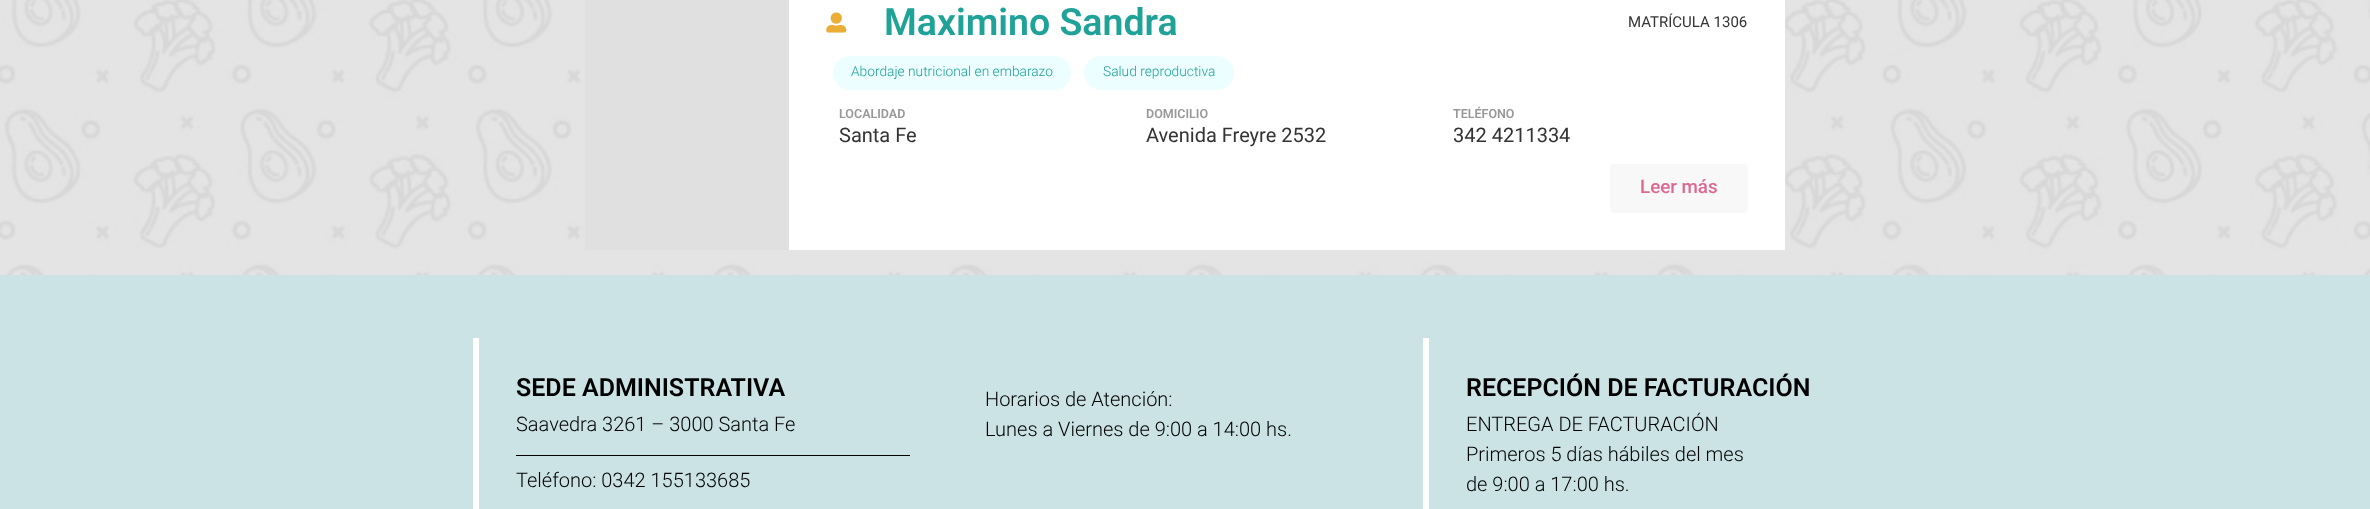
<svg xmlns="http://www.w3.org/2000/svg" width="2370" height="509">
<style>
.a{font:600 37.5px Roboto;fill:#1fa297}
.b{font:15px Roboto;fill:#333}
.c{font:300 13.75px Roboto;fill:#1fa297}
.d{font:600 12.5px Roboto;fill:#989899}
.e{font:20px Roboto;fill:#333}
.f{font:500 18.75px Roboto;fill:#dd6790}
.g{font:600 25px Roboto;fill:#000}
.h{font:300 20px Roboto;fill:#000}
</style>
<rect width="100%" height="100%" fill="#fff"/>
<image href="1.png" x="0" y="0" width="2370" height="275"/>
<path fill="#e1e0e0" d="M585 0h204v250H585z"/>
<path fill="#fff" d="M789 0h996v250H789z"/>
<image href="2.png" x="826" y="12" width="21" height="21"/>
<rect fill="#ecfeff" x="833" y="56" width="238" height="34" rx="17"/>
<rect fill="#ecfeff" x="1084" y="56" width="150" height="34" rx="17"/>
<rect fill="#f8f8f8" x="1610" y="164" width="138" height="49" rx="4"/>
<path fill="#cbe3e4" d="M0 275h2370v234H0z"/>
<path fill="#fff" d="M473 338h6v171H473z"/>
<path fill="#030303" d="M516 455h394v1H516z"/>
<path fill="#fff" d="M1423 338h6v171H1423z"/>
<text class="a" x="884" y="35">Maximino Sandra</text>
<text class="b" x="1628" y="27">MATRÍCULA 1306</text>
<text class="c" x="851" y="76">Abordaje nutricional en embarazo</text>
<text class="c" x="1103" y="76">Salud reproductiva</text>
<text class="d" x="839" y="118">LOCALIDAD</text>
<text class="e" x="839" y="142">Santa Fe</text>
<text class="d" x="1146" y="118">DOMICILIO</text>
<text class="e" x="1146" y="142">Avenida Freyre 2532</text>
<text class="d" x="1453" y="118">TELÉFONO</text>
<text class="e" x="1453" y="142">342 4211334</text>
<text class="f" x="1640" y="193">Leer más</text>
<text class="g" x="516" y="396">SEDE ADMINISTRATIVA</text>
<text class="h" x="516" y="431">Saavedra 3261 – 3000 Santa Fe</text>
<text class="h" x="516" y="487">Teléfono: 0342 155133685</text>
<text class="h" x="985" y="406">Horarios de Atención:</text>
<text class="h" x="985" y="436">Lunes a Viernes de 9:00 a 14:00 hs.</text>
<text class="g" x="1466" y="396">RECEPCIÓN DE FACTURACIÓN</text>
<text class="h" x="1466" y="431">ENTREGA DE FACTURACIÓN</text>
<text class="h" x="1466" y="461">Primeros 5 días hábiles del mes</text>
<text class="h" x="1466" y="491">de 9:00 a 17:00 hs.</text>
</svg>
